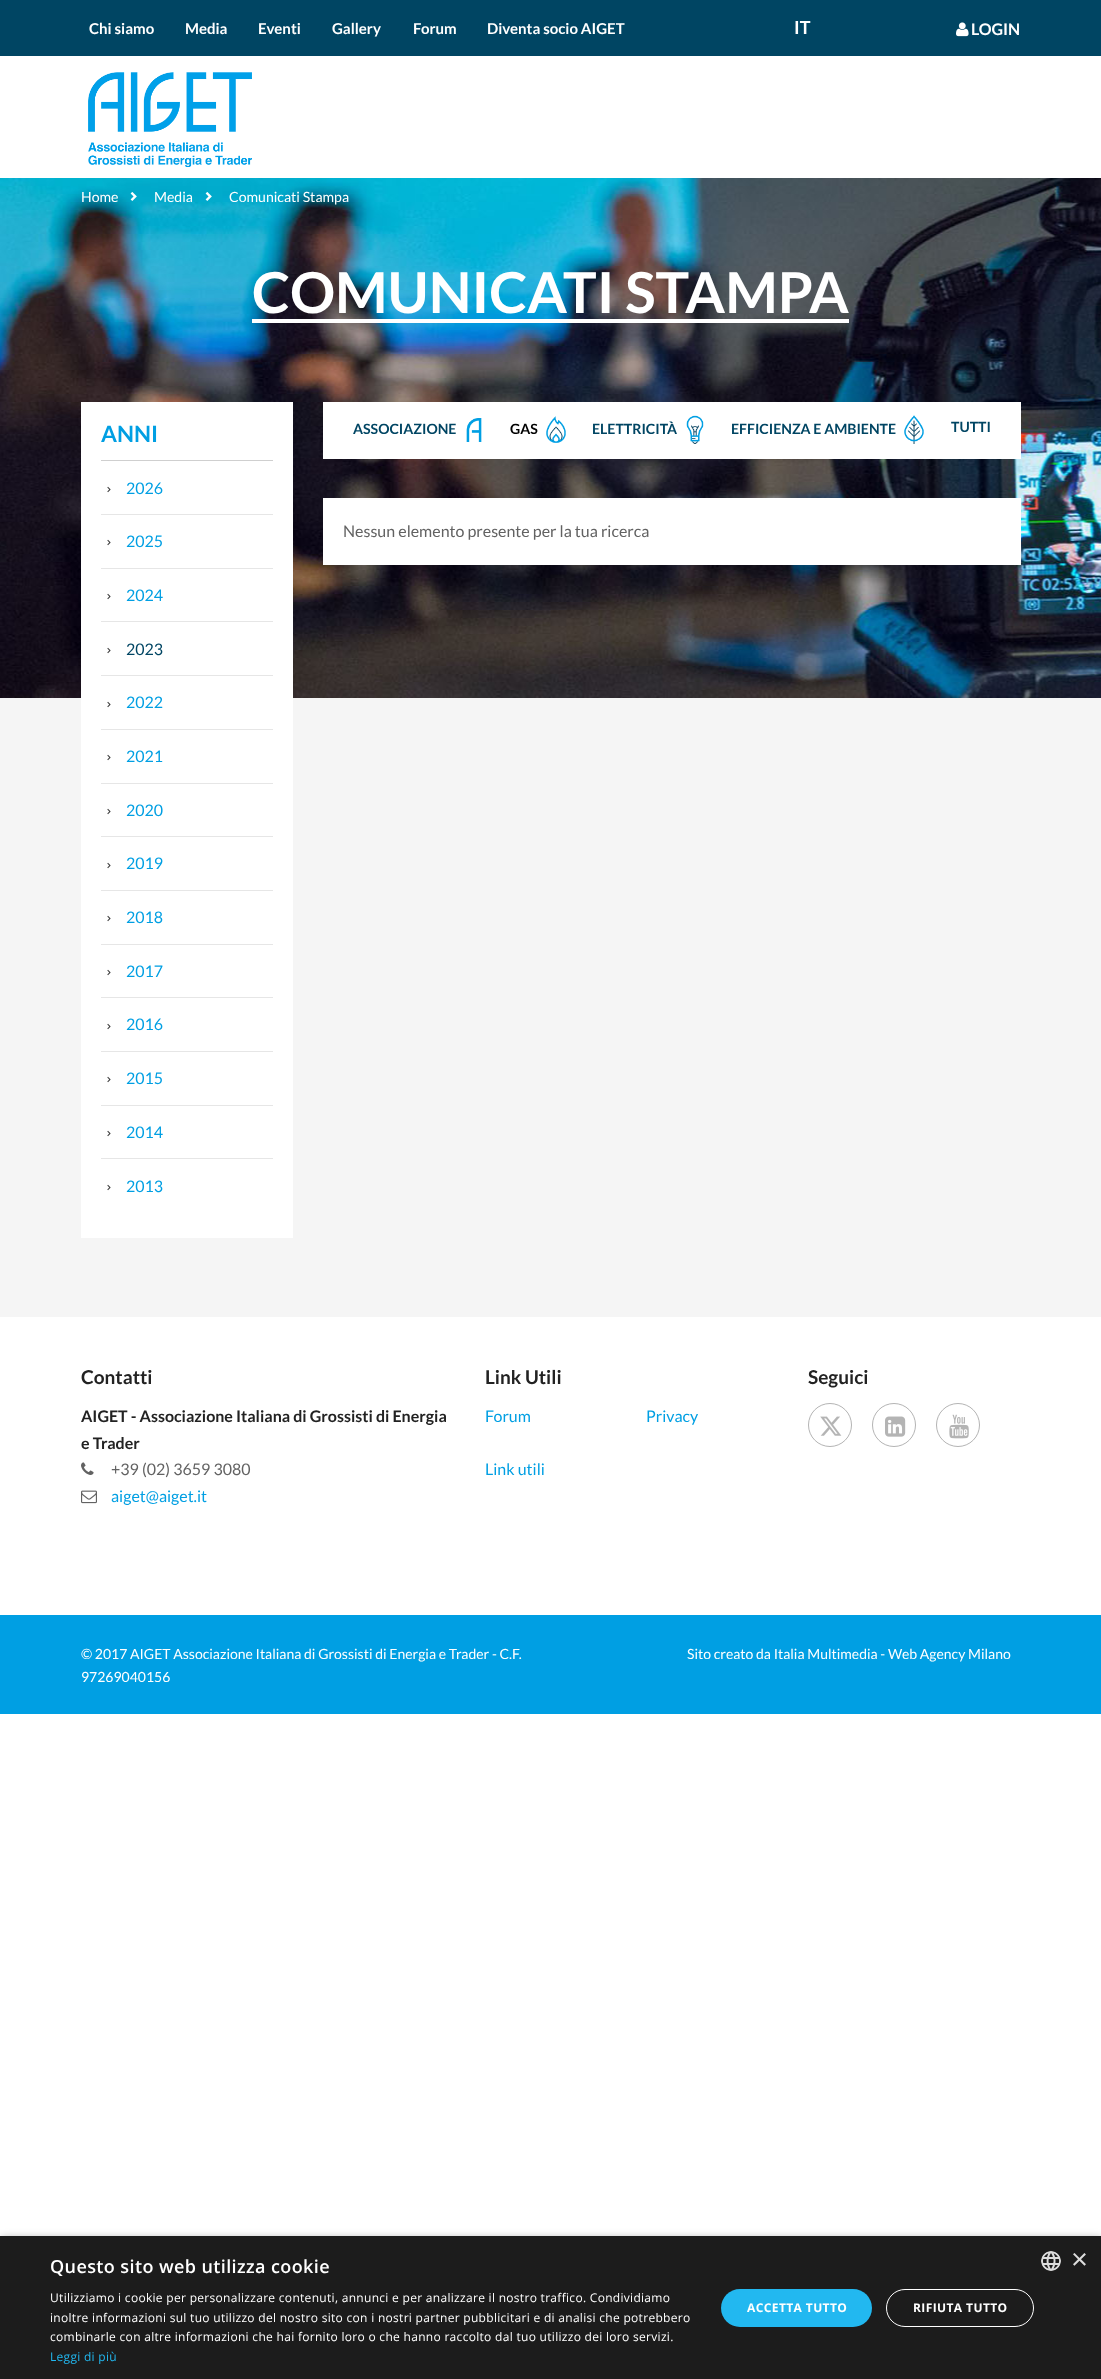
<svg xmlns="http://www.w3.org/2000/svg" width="1101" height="2379">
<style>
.a{font:bold 15px Lato;fill:#fff}
.b{font:bold 18px Lato;fill:#fff}
.c{font:bold 16px Lato;fill:#fff}
.d{font:14.1px Lato;fill:#fff}
.e{font:bold 56.5px Lato;fill:#fff}
.f{font:bold 22.5px Lato;fill:#009fe3}
.g{font:13px DejaVu Sans;fill:#454545}
.h{font:16px Lato;fill:#009fe3}
.i{font:16px Lato;fill:#004563}
.j{font:bold 14.1px Lato;fill:#004563}
.k{font:bold 14.1px Lato;fill:#000}
.l{font:16px Lato;fill:#626262}
.m{font:bold 19px Lato;fill:#222}
.n{font:bold 16px Lato;fill:#222}
.o{font:14px Lato;fill:#fff}
.p{font:600 18px Open Sans;letter-spacing:0.4px;fill:#fff}
.q{font:12px Open Sans;letter-spacing:0.3px;fill:#fff}
.r{font:12px Open Sans;letter-spacing:0.3px;fill:#22b8f0}
.s{font:bold 12px Open Sans;letter-spacing:0.4px;fill:#fff}
.t{font:29px Liberation Sans;fill:#ddd}
</style>
<rect width="100%" height="100%" fill="#fff"/>
<path fill="#004563" d="M0 0h1101v56H0z"/>
<image href="1.png" x="956" y="22" width="13" height="15"/>
<image href="2.png" x="88" y="72" width="164" height="95"/>
<path fill="#f5f5f5" d="M0 698h1101v619H0z"/>
<image href="3.png" x="0" y="178" width="1101" height="520"/>
<image href="4.png" x="130" y="192" width="7" height="9"/>
<image href="5.png" x="205" y="192" width="7" height="9"/>
<path fill="#fff" d="M252 319h597v4H252z"/>
<path fill="#fff" d="M81 402h212v836H81z"/>
<path fill="#cfcfcf" d="M101 460h172v1H101z"/>
<path fill="#e6e6e6" d="M101 514h172v1H101z"/>
<path fill="#e6e6e6" d="M101 568h172v1H101z"/>
<path fill="#e6e6e6" d="M101 621h172v1H101z"/>
<path fill="#e6e6e6" d="M101 675h172v1H101z"/>
<path fill="#e6e6e6" d="M101 729h172v1H101z"/>
<path fill="#e6e6e6" d="M101 783h172v1H101z"/>
<path fill="#e6e6e6" d="M101 836h172v1H101z"/>
<path fill="#e6e6e6" d="M101 890h172v1H101z"/>
<path fill="#e6e6e6" d="M101 944h172v1H101z"/>
<path fill="#e6e6e6" d="M101 997h172v1H101z"/>
<path fill="#e6e6e6" d="M101 1051h172v1H101z"/>
<path fill="#e6e6e6" d="M101 1105h172v1H101z"/>
<path fill="#e6e6e6" d="M101 1158h172v1H101z"/>
<path fill="#fff" d="M323 402h698v57H323z"/>
<image href="6.png" x="466" y="418" width="16" height="24"/>
<image href="7.png" x="546" y="416" width="20" height="27"/>
<image href="8.png" x="686" y="415" width="18" height="29"/>
<image href="9.png" x="904" y="415" width="20" height="29"/>
<path fill="#fff" d="M323 498h698v67H323z"/>
<image href="10.png" x="81" y="1462" width="13" height="13"/>
<image href="11.png" x="81" y="1490" width="16" height="14"/>
<circle fill="none" stroke="#b4b4b4" cx="830" cy="1425" r="21.5"/>
<image href="12.png" x="820" y="1416" width="22" height="20"/>
<circle fill="none" stroke="#b4b4b4" cx="894" cy="1425" r="21.5"/>
<image href="13.png" x="885" y="1416" width="21" height="21"/>
<circle fill="none" stroke="#b4b4b4" cx="958" cy="1425" r="21.5"/>
<image href="14.png" x="949" y="1414" width="20" height="25"/>
<path fill="#009fe3" d="M0 1615h1101v99H0z"/>
<path fill="#00000059" filter="blur(4px)" d="M1 2238h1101v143H1z"/>
<path fill="#1c1c1c" d="M0 2236h1101v143H0z"/>
<rect fill="#22b8f0" x="721" y="2289" width="151" height="38" rx="19"/>
<rect fill="none" stroke="#fff" x="886.5" y="2289.5" width="147" height="37" rx="18.5"/>
<image href="15.png" x="1041" y="2251" width="20" height="20"/>
<text class="a" x="89" y="34">Chi siamo</text>
<text class="a" x="185" y="34">Media</text>
<text class="a" x="258" y="34">Eventi</text>
<text class="a" x="332" y="34">Gallery</text>
<text class="a" x="413" y="34">Forum</text>
<text class="a" x="487" y="34">Diventa socio AIGET</text>
<text class="b" x="794" y="34">IT</text>
<text class="c" x="971" y="35">LOGIN</text>
<text class="d" x="81" y="202">Home</text>
<text class="d" x="154" y="202">Media</text>
<text class="d" x="229" y="202">Comunicati Stampa</text>
<text class="e" x="252" y="313">COMUNICATI STAMPA</text>
<text class="f" x="101" y="442">ANNI</text>
<text class="g" x="101" y="484" transform="rotate(90 101 484)">⌃</text>
<text class="h" x="126" y="494">2026</text>
<text class="g" x="101" y="537" transform="rotate(90 101 537)">⌃</text>
<text class="h" x="126" y="547">2025</text>
<text class="g" x="101" y="591" transform="rotate(90 101 591)">⌃</text>
<text class="h" x="126" y="601">2024</text>
<text class="g" x="101" y="645" transform="rotate(90 101 645)">⌃</text>
<text class="i" x="126" y="655">2023</text>
<text class="g" x="101" y="699" transform="rotate(90 101 699)">⌃</text>
<text class="h" x="126" y="708">2022</text>
<text class="g" x="101" y="752" transform="rotate(90 101 752)">⌃</text>
<text class="h" x="126" y="762">2021</text>
<text class="g" x="101" y="806" transform="rotate(90 101 806)">⌃</text>
<text class="h" x="126" y="816">2020</text>
<text class="g" x="101" y="860" transform="rotate(90 101 860)">⌃</text>
<text class="h" x="126" y="869">2019</text>
<text class="g" x="101" y="913" transform="rotate(90 101 913)">⌃</text>
<text class="h" x="126" y="923">2018</text>
<text class="g" x="101" y="967" transform="rotate(90 101 967)">⌃</text>
<text class="h" x="126" y="977">2017</text>
<text class="g" x="101" y="1021" transform="rotate(90 101 1021)">⌃</text>
<text class="h" x="126" y="1030">2016</text>
<text class="g" x="101" y="1074" transform="rotate(90 101 1074)">⌃</text>
<text class="h" x="126" y="1084">2015</text>
<text class="g" x="101" y="1128" transform="rotate(90 101 1128)">⌃</text>
<text class="h" x="126" y="1138">2014</text>
<text class="g" x="101" y="1182" transform="rotate(90 101 1182)">⌃</text>
<text class="h" x="126" y="1192">2013</text>
<text class="j" x="353" y="434">ASSOCIAZIONE</text>
<text class="k" x="510" y="434">GAS</text>
<text class="j" x="592" y="434">ELETTRICITÀ</text>
<text class="j" x="731" y="434">EFFICIENZA E AMBIENTE</text>
<text class="j" x="951" y="432">TUTTI</text>
<text class="l" x="343" y="537">Nessun elemento presente per la tua ricerca</text>
<text class="m" x="81" y="1384">Contatti</text>
<text class="n" x="81" y="1422">AIGET - Associazione Italiana di Grossisti di Energia</text>
<text class="n" x="81" y="1449">e Trader</text>
<text class="l" x="111" y="1475">+39 (02) 3659 3080</text>
<text class="h" x="111" y="1502">aiget@aiget.it</text>
<text class="m" x="485" y="1384">Link Utili</text>
<text class="h" x="485" y="1422">Forum</text>
<text class="h" x="485" y="1475">Link utili</text>
<text class="h" x="646" y="1422">Privacy</text>
<text class="m" x="808" y="1384">Seguici</text>
<text class="o" x="81" y="1659">© 2017 AIGET Associazione Italiana di Grossisti di Energia e Trader - C.F.</text>
<text class="o" x="81" y="1682">97269040156</text>
<text class="o" x="687" y="1659">Sito creato da Italia Multimedia - Web Agency Milano</text>
<text class="p" x="50" y="2273">Questo sito web utilizza cookie</text>
<text class="q" x="50" y="2302">Utilizziamo i cookie per personalizzare contenuti, annunci e per analizzare il nostro traffico. Condividiamo</text>
<text class="q" x="50" y="2322">inoltre informazioni sul tuo utilizzo del nostro sito con i nostri partner pubblicitari e di analisi che potrebbero</text>
<text class="q" x="50" y="2341">combinarle con altre informazioni che hai fornito loro o che hanno raccolto dal tuo utilizzo dei loro servizi.</text>
<text class="r" x="50" y="2361">Leggi di più</text>
<text class="s" x="747" y="2312">ACCETTA TUTTO</text>
<text class="s" x="913" y="2312">RIFIUTA TUTTO</text>
<text class="t" x="1071" y="2269">×</text>
</svg>
